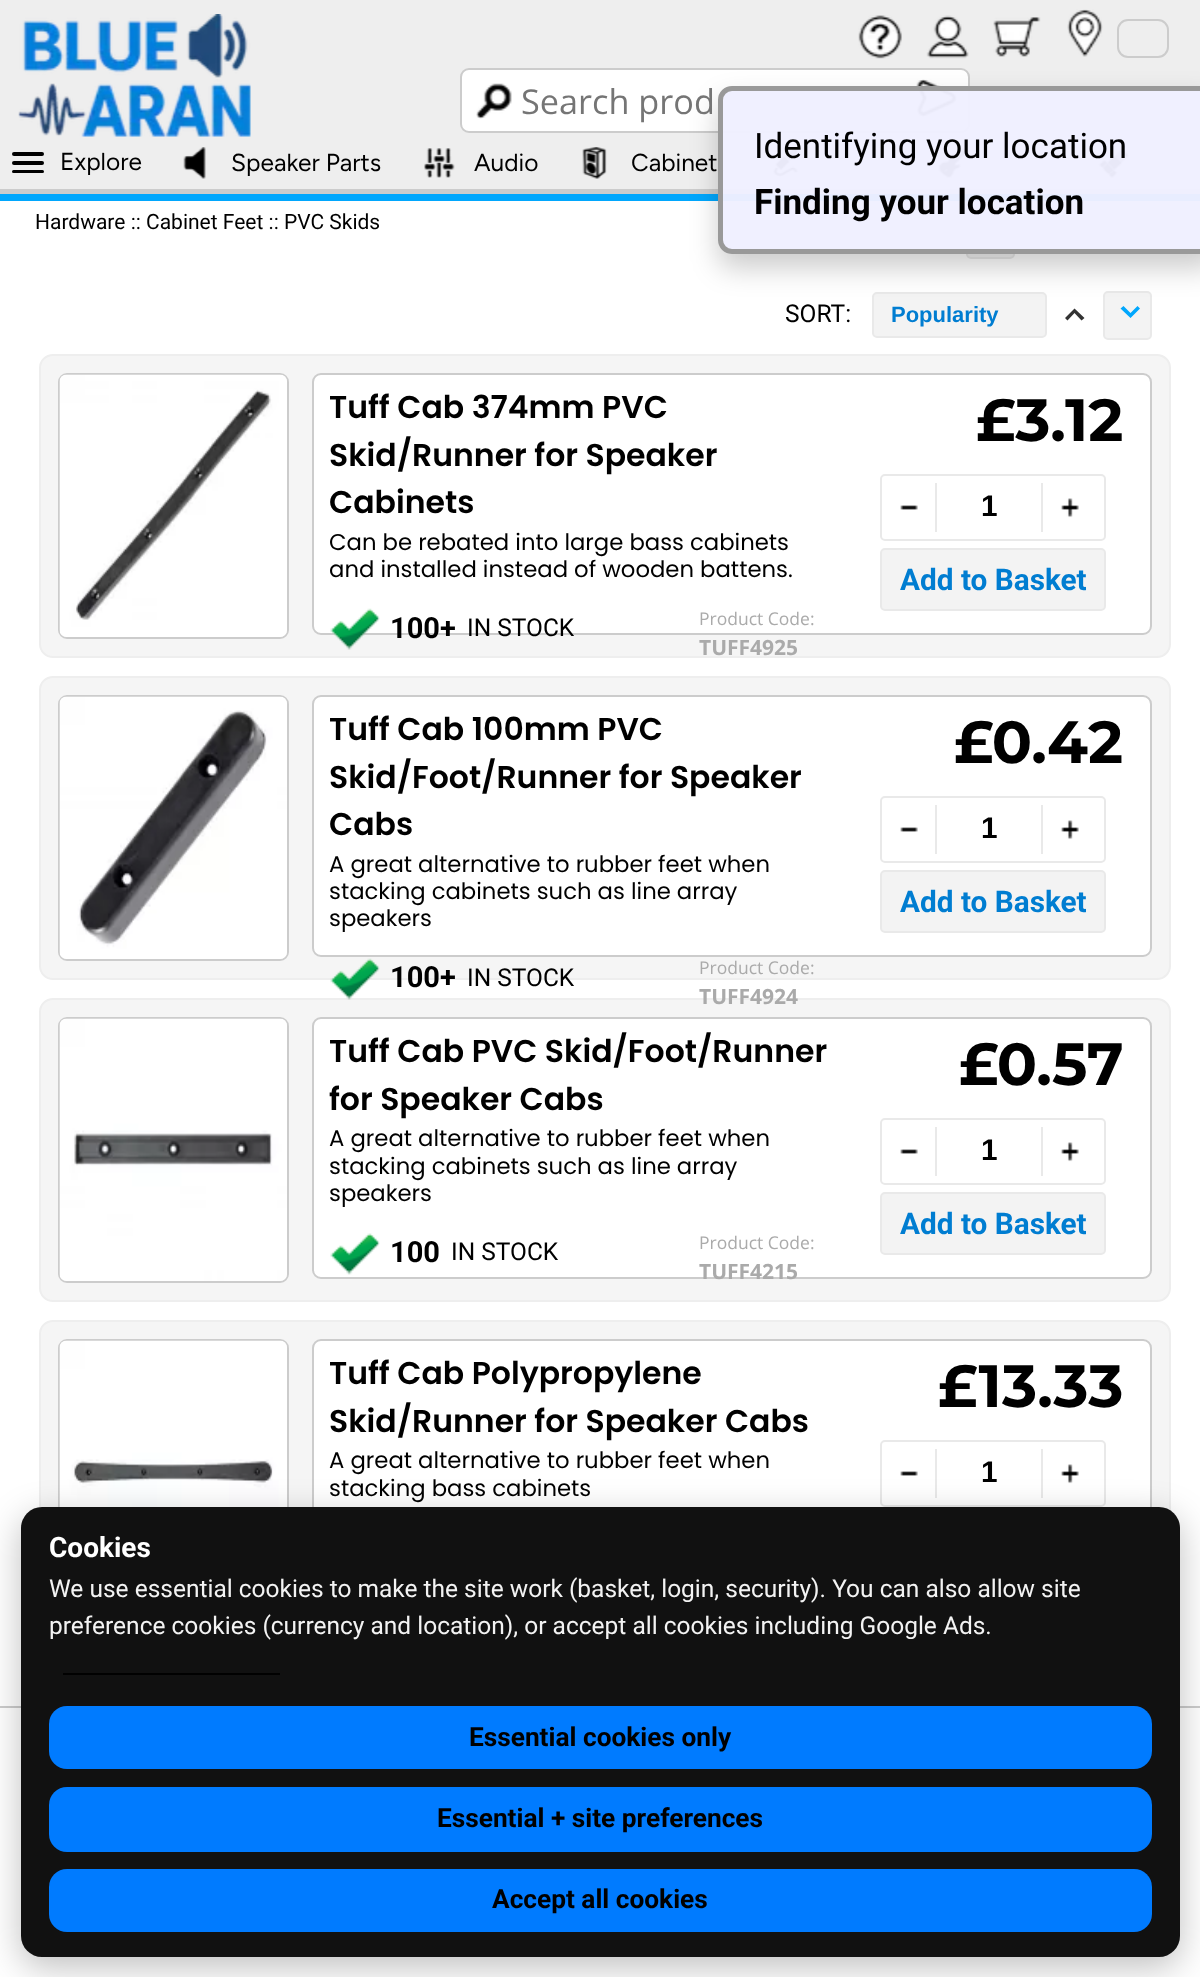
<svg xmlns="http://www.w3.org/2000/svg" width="1200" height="1977">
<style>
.a{font:24.5px Figtree;fill:#000}
.b{font:34.25px Open Sans;fill:#757575}
.c{font:35px Roboto;fill:#000}
.d{font:bold 35px Roboto;fill:#000}
.e{font:21px Roboto;fill:#000}
.f{font:24.5px Roboto;fill:#000}
.g{font:bold 22px Liberation Sans;fill:#007dd1}
.h{font:600 31.5px Poppins;fill:#000}
.i{font:22.75px Poppins;fill:#000}
.j{font:bold 29px Roboto;fill:#000}
.k{font:17.5px Open Sans;fill:#aaa}
.l{font:bold 21px Open Sans;fill:#aaa}
.m{font:100 59.5px Montserrat;fill:#000}
.n{font:bold 29.75px Liberation Sans;fill:#000}
.o{font:bold 29.75px Roboto;fill:#007dd1}
.p{font:bold 28px Roboto;fill:#fff}
.q{font:24.5px Roboto;fill:#f3f3f3}
.r{font:bold 26.25px Roboto;fill:#000}
</style>
<defs>
<clipPath id="clip1"><path d="M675 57h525v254h-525zm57 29h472c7.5 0 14 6.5 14 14v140c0 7.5-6.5 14-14 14h-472c-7.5 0-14-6.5-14-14v-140c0-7.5 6.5-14 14-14z" clip-rule="evenodd"/></clipPath>
</defs>
<rect width="100%" height="100%" fill="#fff"/>
<path fill="#ccc" d="M0 189h1200v5H0z"/>
<path fill="#01a7fd" d="M0 194h1200v7H0z"/>
<path fill="#eee" d="M0 0h1200v189H0z"/>
<rect fill="#000" x="12" y="152" width="32" height="4" rx="2"/>
<rect fill="#000" x="12" y="161" width="32" height="4" rx="2"/>
<rect fill="#000" x="12" y="170" width="32" height="3" rx="1.5"/>
<image href="1.png" x="183" y="147" width="23" height="32"/>
<image href="2.png" x="424" y="148" width="31" height="30"/>
<image href="3.png" x="582" y="147" width="25" height="32"/>
<image href="4.png" x="773" y="148" width="26" height="29"/>
<image href="5.png" x="938" y="148" width="32" height="30"/>
<image href="6.png" x="1098" y="149" width="31" height="29"/>
<image href="7.png" x="18" y="14" width="233" height="123"/>
<rect fill="#fff" stroke="#ccc" stroke-width="2" x="461" y="69" width="508" height="63" rx="8"/>
<image href="8.png" x="476" y="83" width="36" height="36"/>
<image href="9.png" x="916" y="79" width="42" height="39"/>
<image href="10.png" x="858" y="15" width="44" height="44"/>
<image href="11.png" x="926" y="15" width="43" height="44"/>
<image href="12.png" x="993" y="17" width="48" height="40"/>
<image href="13.png" x="1067" y="9" width="36" height="48"/>
<rect fill="none" stroke="#ccc" stroke-width="2" x="1118" y="20" width="50" height="37" rx="10"/>
<rect fill="#f3f3f3" stroke="#e9e9e9" stroke-width="2" x="967" y="211" width="47" height="47" rx="4"/>
<rect fill="#f3f3f3" stroke="#e9e9e9" stroke-width="2" x="873" y="293" width="173" height="44" rx="4"/>
<path fill="#333" d="M1081.5 320.5l-7-7.5l-7 7.5l-2.5-2.5l9.5-9.5l10 9.5z"/>
<rect fill="#f3f3f3" stroke="#e9e9e9" stroke-width="2" x="1104" y="292" width="47" height="47" rx="4"/>
<path fill="#01a7fd" d="M1123.5 306l7 7l7-7l2.5 2.5l-9.5 9.5l-10-9.5z"/>
<g clip-path="url(#clip1)">
<rect fill="#00000033" filter="blur(14px)" x="718" y="100" width="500" height="168" rx="14"/>
</g>
<rect fill="#f0f0fff7" stroke="#999" stroke-width="5" x="720.5" y="88.5" width="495" height="163" rx="11.5"/>
<rect fill="#f5f5f5" stroke="#eee" stroke-width="2" x="40" y="355" width="1130" height="302" rx="13"/>
<rect fill="none" stroke="#ccc" stroke-width="2" x="59" y="374" width="229" height="264" rx="8"/>
<image href="14.png" x="59" y="374" width="228" height="263"/>
<rect fill="#fff" stroke="#ccc" stroke-width="2" x="313" y="374" width="838" height="260" rx="8"/>
<image href="15.png" x="330" y="608" width="50" height="42"/>
<rect fill="none" stroke="#e9e9e9" stroke-width="2" x="881" y="475" width="224" height="65" rx="4"/>
<path fill="#e9e9e9" d="M935 483h2v49H935z"/>
<image href="16.png" x="900" y="505" width="18" height="5"/>
<path fill="#e9e9e9" d="M1041 483h2v49H1041z"/>
<image href="17.png" x="1060" y="498" width="19" height="20"/>
<rect fill="#f3f3f3" stroke="#e9e9e9" stroke-width="2" x="881" y="549" width="224" height="61" rx="4"/>
<rect fill="#f5f5f5" stroke="#eee" stroke-width="2" x="40" y="677" width="1130" height="302" rx="13"/>
<rect fill="none" stroke="#ccc" stroke-width="2" x="59" y="696" width="229" height="264" rx="8"/>
<image href="18.png" x="59" y="696" width="228" height="263"/>
<rect fill="#fff" stroke="#ccc" stroke-width="2" x="313" y="696" width="838" height="260" rx="8"/>
<rect fill="#f5f5f5" stroke="#eee" stroke-width="2" x="40" y="999" width="1130" height="302" rx="13"/>
<image href="19.png" x="330" y="958" width="50" height="42"/>
<rect fill="none" stroke="#e9e9e9" stroke-width="2" x="881" y="797" width="224" height="65" rx="4"/>
<path fill="#e9e9e9" d="M935 805h2v49H935z"/>
<image href="16.png" x="900" y="827" width="18" height="5"/>
<path fill="#e9e9e9" d="M1041 805h2v49H1041z"/>
<image href="17.png" x="1060" y="820" width="19" height="20"/>
<rect fill="#f3f3f3" stroke="#e9e9e9" stroke-width="2" x="881" y="871" width="224" height="61" rx="4"/>
<rect fill="none" stroke="#ccc" stroke-width="2" x="59" y="1018" width="229" height="264" rx="8"/>
<image href="20.png" x="59" y="1018" width="228" height="263"/>
<rect fill="#fff" stroke="#ccc" stroke-width="2" x="313" y="1018" width="838" height="260" rx="8"/>
<image href="21.png" x="330" y="1233" width="50" height="42"/>
<rect fill="none" stroke="#e9e9e9" stroke-width="2" x="881" y="1119" width="224" height="65" rx="4"/>
<path fill="#e9e9e9" d="M935 1127h2v49H935z"/>
<image href="16.png" x="900" y="1149" width="18" height="5"/>
<path fill="#e9e9e9" d="M1041 1127h2v49H1041z"/>
<image href="17.png" x="1060" y="1142" width="19" height="20"/>
<rect fill="#f3f3f3" stroke="#e9e9e9" stroke-width="2" x="881" y="1193" width="224" height="61" rx="4"/>
<rect fill="#f5f5f5" stroke="#eee" stroke-width="2" x="40" y="1321" width="1130" height="302" rx="13"/>
<rect fill="none" stroke="#ccc" stroke-width="2" x="59" y="1340" width="229" height="264" rx="8"/>
<image href="22.png" x="59" y="1340" width="228" height="167"/>
<rect fill="#fff" stroke="#ccc" stroke-width="2" x="313" y="1340" width="838" height="260" rx="8"/>
<rect fill="none" stroke="#e9e9e9" stroke-width="2" x="881" y="1441" width="224" height="65" rx="4"/>
<path fill="#e9e9e9" d="M935 1449h2v49H935z"/>
<image href="16.png" x="900" y="1471" width="18" height="5"/>
<path fill="#e9e9e9" d="M1041 1449h2v49H1041z"/>
<image href="17.png" x="1060" y="1464" width="19" height="20"/>
<path fill="#ccc" d="M0 1706h1200v2H0z"/>
<rect fill="#00000040" filter="blur(17.5px)" x="21" y="1517" width="1159" height="450" rx="21"/>
<rect fill="#111" x="21" y="1507" width="1159" height="450" rx="21"/>
<path fill="#010101" d="M63 1673h217v2H63z"/>
<rect fill="#007bff" x="49" y="1706" width="1103" height="63" rx="18"/>
<rect fill="#007bff" x="49" y="1787" width="1103" height="65" rx="18"/>
<rect fill="#007bff" x="49" y="1869" width="1103" height="63" rx="18"/>
<text class="a" x="60" y="170">Explore</text>
<text class="a" x="231" y="171">Speaker Parts</text>
<text class="a" x="474" y="171">Audio</text>
<text class="a" x="631" y="171">Cabinet</text>
<text class="b" x="521" y="114">Search prod</text>
<text class="c" x="754" y="158">Identifying your location</text>
<text class="d" x="754" y="214">Finding your location</text>
<text class="e" x="35" y="229">Hardware :: Cabinet Feet :: PVC Skids</text>
<text class="f" x="785" y="322">SORT:</text>
<text class="g" x="891" y="322">Popularity</text>
<text class="h" x="329" y="418">Tuff Cab 374mm PVC</text>
<text class="h" x="329" y="466">Skid/Runner for Speaker</text>
<text class="h" x="329" y="513">Cabinets</text>
<text class="i" x="329" y="550">Can be rebated into large bass cabinets</text>
<text class="i" x="329" y="577">and installed instead of wooden battens.</text>
<text class="j" x="390" y="638">100+</text>
<text class="f" x="467" y="636">IN STOCK</text>
<text class="k" x="699" y="625">Product Code:</text>
<text class="l" x="699" y="655">TUFF4925</text>
<text class="m" x="976" y="441">£3.12</text>
<text class="n" x="981" y="516">1</text>
<text class="o" x="900" y="590">Add to Basket</text>
<text class="h" x="329" y="740">Tuff Cab 100mm PVC</text>
<text class="h" x="329" y="788">Skid/Foot/Runner for Speaker</text>
<text class="h" x="329" y="835">Cabs</text>
<text class="i" x="329" y="872">A great alternative to rubber feet when</text>
<text class="i" x="329" y="899">stacking cabinets such as line array</text>
<text class="i" x="329" y="926">speakers</text>
<text class="j" x="390" y="987">100+</text>
<text class="f" x="467" y="986">IN STOCK</text>
<text class="k" x="699" y="974">Product Code:</text>
<text class="l" x="699" y="1004">TUFF4924</text>
<text class="m" x="954" y="763">£0.42</text>
<text class="n" x="981" y="838">1</text>
<text class="o" x="900" y="912">Add to Basket</text>
<text class="h" x="329" y="1062">Tuff Cab PVC Skid/Foot/Runner</text>
<text class="h" x="329" y="1110">for Speaker Cabs</text>
<text class="i" x="329" y="1146">A great alternative to rubber feet when</text>
<text class="i" x="329" y="1174">stacking cabinets such as line array</text>
<text class="i" x="329" y="1201">speakers</text>
<text class="j" x="390" y="1262">100</text>
<text class="f" x="451" y="1260">IN STOCK</text>
<text class="k" x="699" y="1249">Product Code:</text>
<text class="l" x="699" y="1279">TUFF4215</text>
<text class="m" x="959" y="1085">£0.57</text>
<text class="n" x="981" y="1160">1</text>
<text class="o" x="900" y="1234">Add to Basket</text>
<text class="h" x="329" y="1384">Tuff Cab Polypropylene</text>
<text class="h" x="329" y="1432">Skid/Runner for Speaker Cabs</text>
<text class="i" x="329" y="1468">A great alternative to rubber feet when</text>
<text class="i" x="329" y="1496">stacking bass cabinets</text>
<text class="m" x="938" y="1407">£13.33</text>
<text class="n" x="981" y="1482">1</text>
<text class="p" x="49" y="1557">Cookies</text>
<text class="q" x="49" y="1597">We use essential cookies to make the site work (basket, login, security). You can also allow site</text>
<text class="q" x="49" y="1634">preference cookies (currency and location), or accept all cookies including Google Ads.</text>
<text class="r" x="469" y="1746">Essential cookies only</text>
<text class="r" x="437" y="1827">Essential + site preferences</text>
<text class="r" x="492" y="1908">Accept all cookies</text>
</svg>
